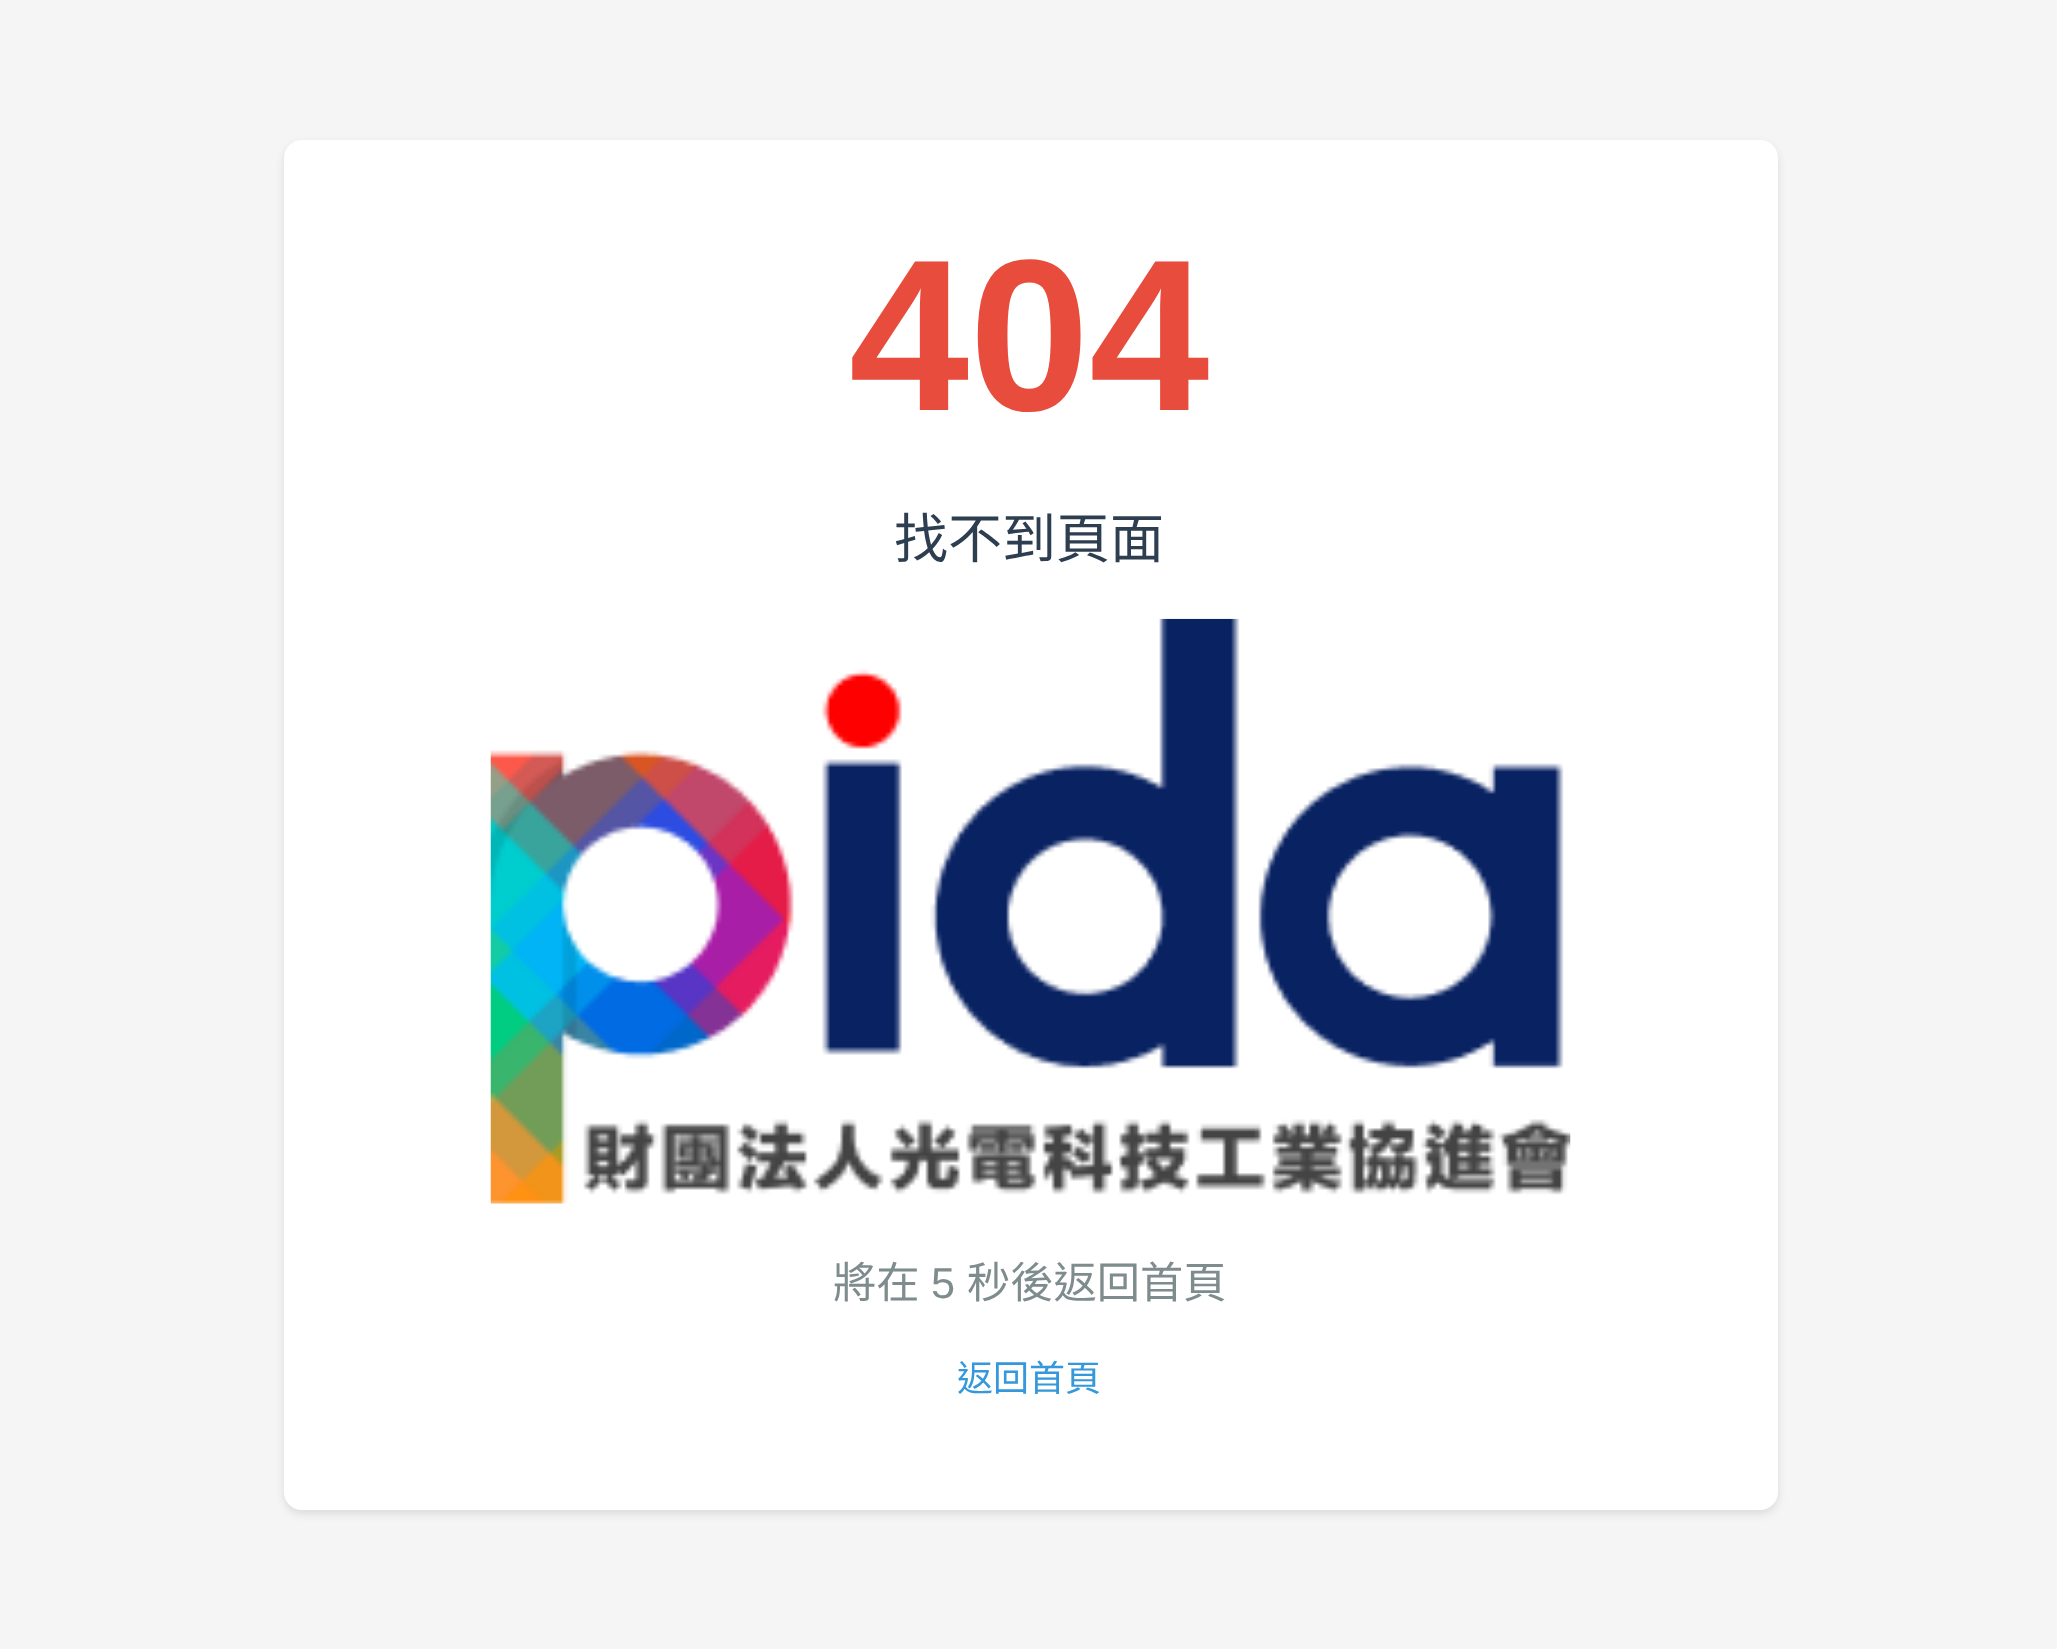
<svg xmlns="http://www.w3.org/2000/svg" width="2057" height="1649">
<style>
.a{font:bold 216px Liberation Sans;fill:#e74c3c}
.b{font:54px Noto Sans CJK TC;fill:#2c3e50}
.c{font:43.25px Noto Sans CJK TC;fill:#7f8c8d}
.d{font:43.25px Liberation Sans;fill:#7f8c8d}
.e{font:36px Noto Sans CJK TC;fill:#3498db}
</style>
<rect width="100%" height="100%" fill="#f5f5f5"/>
<rect fill="#0000001a" filter="blur(4.5px)" x="284" y="144" width="1494" height="1370" rx="18"/>
<rect fill="#fff" x="284" y="140" width="1494" height="1370" rx="18"/>
<image href="1.png" x="490" y="618" width="1081" height="586"/>
<text class="a" x="849" y="410">404</text>
<text class="b" x="894" y="558">找不到頁面</text>
<text class="c" x="833" y="1298">將在</text>
<text class="d" x="931" y="1298">5</text>
<text class="c" x="967" y="1298">秒後返回首頁</text>
<text class="e" x="957" y="1391">返回首頁</text>
</svg>
